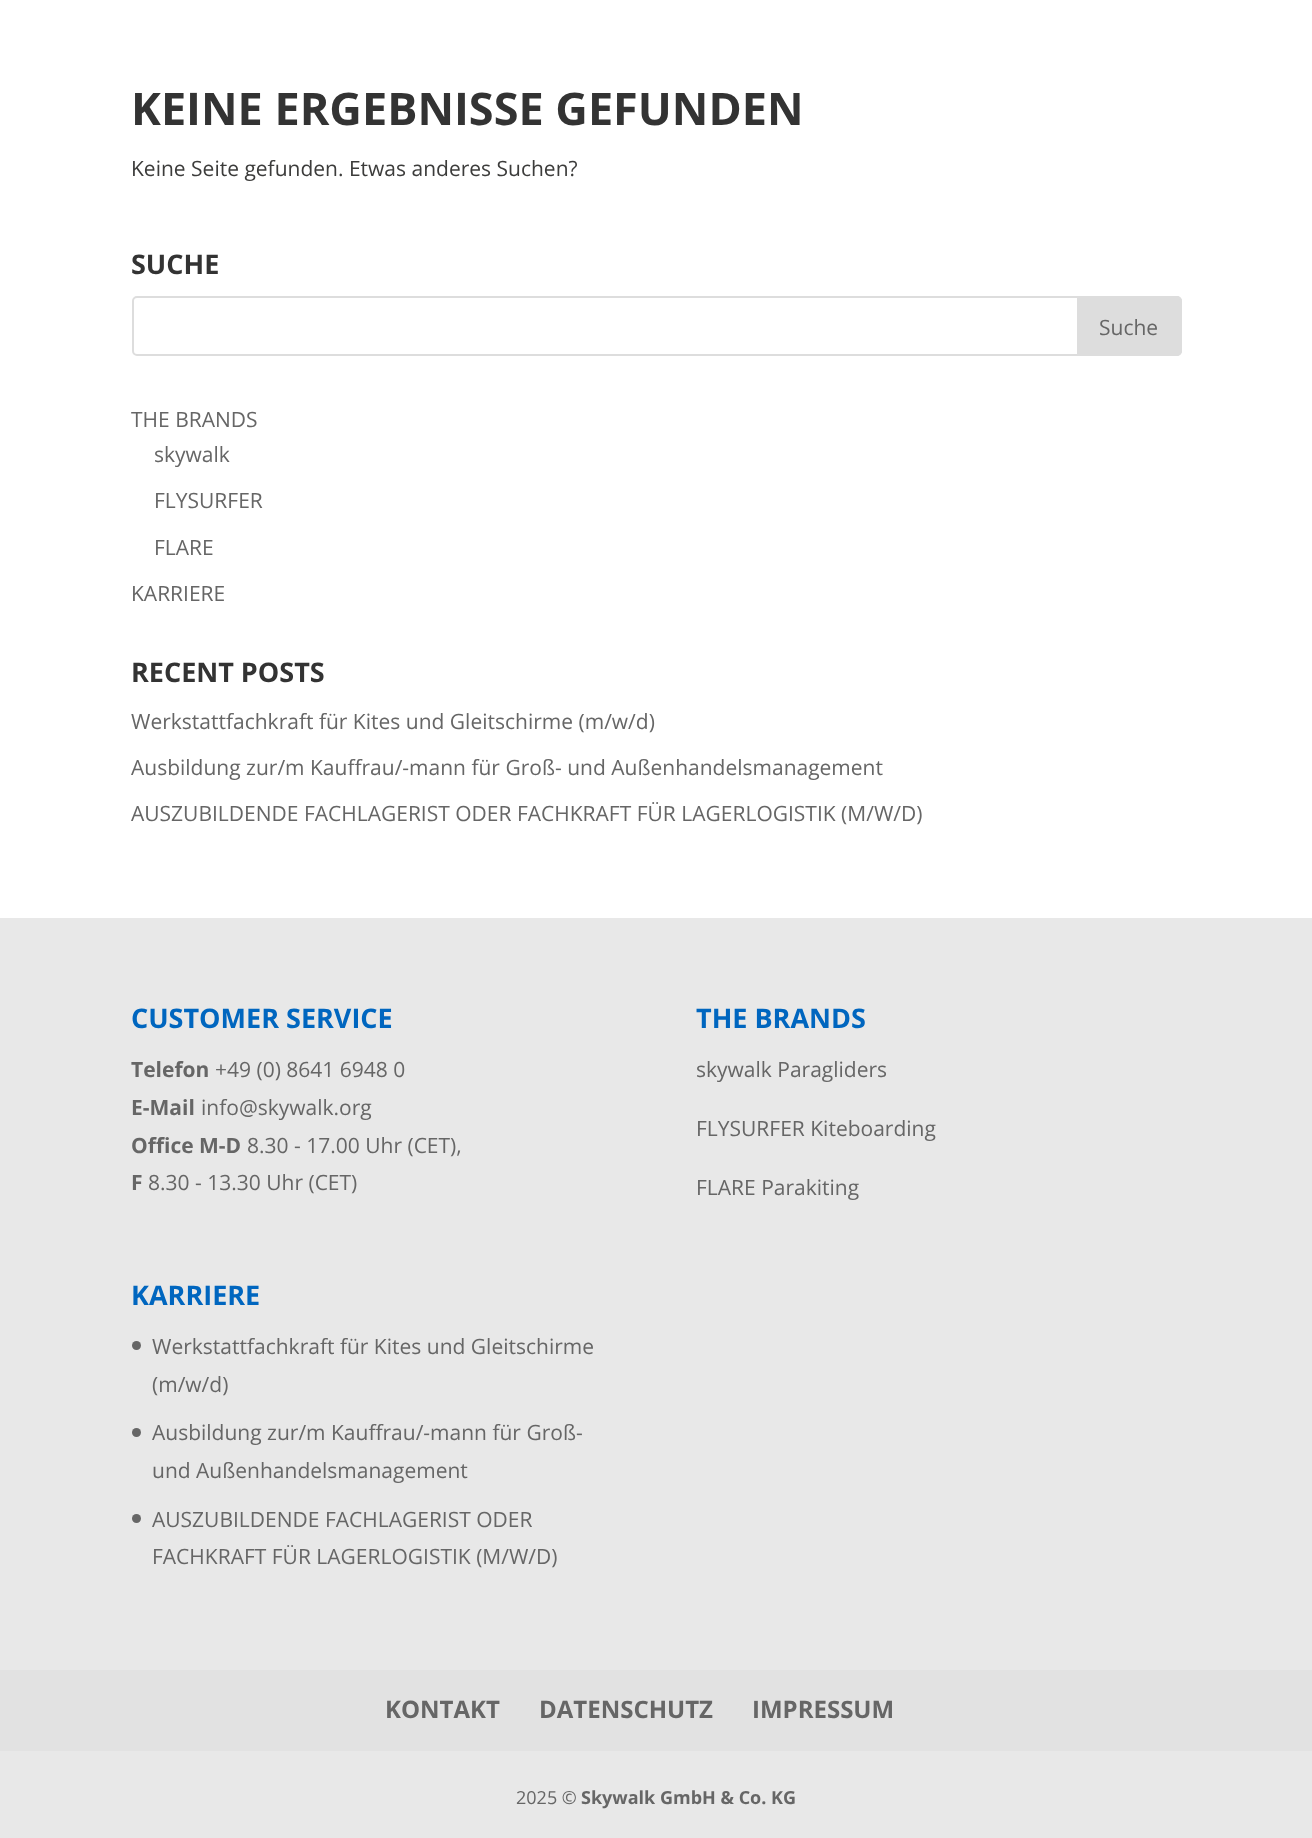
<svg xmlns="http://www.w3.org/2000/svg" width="1312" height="1838">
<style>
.a{font:bold 45px Open Sans;fill:#333}
.b{font:21px Open Sans;fill:#3c3c3b}
.c{font:bold 27px Open Sans;fill:#333}
.d{font:21px Open Sans;fill:#666}
.e{font:bold 27px Open Sans;fill:#0066bf}
.f{font:bold 21px Open Sans;fill:#666}
.g{font:bold 24px Open Sans;fill:#666}
.h{font:18px Open Sans;fill:#666}
.i{font:bold 18px Open Sans;fill:#666}
</style>
<rect width="100%" height="100%" fill="#fff"/>
<rect fill="none" stroke="#ddd" stroke-width="2" x="133" y="297" width="1048" height="58" rx="4"/>
<path fill="#ddd" stroke="#ddd" stroke-width="2" d="M1078 297h99c2 0 4 2 4 4v50c0 2-2 4-4 4h-99z"/>
<path fill="#e8e8e8" d="M0 918h1312v920H0z"/>
<circle fill="#666" cx="136.5" cy="1345.5" r="4.5"/>
<circle fill="#666" cx="136.5" cy="1432.5" r="4.5"/>
<circle fill="#666" cx="136.5" cy="1518.5" r="4.5"/>
<path fill="#e2e2e2" d="M0 1670h1312v81H0z"/>
<text class="a" x="131" y="125">KEINE ERGEBNISSE GEFUNDEN</text>
<text class="b" x="131" y="176">Keine Seite gefunden. Etwas anderes Suchen?</text>
<text class="c" x="131" y="274">SUCHE</text>
<text class="d" x="1099" y="335">Suche</text>
<text class="d" x="131" y="427">THE BRANDS</text>
<text class="d" x="154" y="462">skywalk</text>
<text class="d" x="154" y="508">FLYSURFER</text>
<text class="d" x="154" y="555">FLARE</text>
<text class="d" x="131" y="601">KARRIERE</text>
<text class="c" x="131" y="682">RECENT POSTS</text>
<text class="d" x="131" y="729">Werkstattfachkraft für Kites und Gleitschirme (m/w/d)</text>
<text class="d" x="131" y="775">Ausbildung zur/m Kauffrau/-mann für Groß- und Außenhandelsmanagement</text>
<text class="d" x="131" y="821">AUSZUBILDENDE FACHLAGERIST ODER FACHKRAFT FÜR LAGERLOGISTIK (M/W/D)</text>
<text class="e" x="131" y="1028">CUSTOMER SERVICE</text>
<text class="f" x="131" y="1077">Telefon</text>
<text class="d" x="215" y="1077">+49 (0) 8641 6948 0</text>
<text class="f" x="131" y="1115">E-Mail</text>
<text class="d" x="201" y="1115">info@skywalk.org</text>
<text class="f" x="131" y="1153">Office M-D</text>
<text class="d" x="247" y="1153">8.30 - 17.00 Uhr (CET),</text>
<text class="f" x="131" y="1190">F</text>
<text class="d" x="148" y="1190">8.30 - 13.30 Uhr (CET)</text>
<text class="e" x="696" y="1028">THE BRANDS</text>
<text class="d" x="696" y="1077">skywalk Paragliders</text>
<text class="d" x="696" y="1136">FLYSURFER Kiteboarding</text>
<text class="d" x="696" y="1195">FLARE Parakiting</text>
<text class="e" x="131" y="1305">KARRIERE</text>
<text class="d" x="152" y="1354">Werkstattfachkraft für Kites und Gleitschirme</text>
<text class="d" x="152" y="1392">(m/w/d)</text>
<text class="d" x="152" y="1440">Ausbildung zur/m Kauffrau/-mann für Groß-</text>
<text class="d" x="152" y="1478">und Außenhandelsmanagement</text>
<text class="d" x="152" y="1527">AUSZUBILDENDE FACHLAGERIST ODER</text>
<text class="d" x="152" y="1564">FACHKRAFT FÜR LAGERLOGISTIK (M/W/D)</text>
<text class="g" x="385" y="1718">KONTAKT</text>
<text class="g" x="539" y="1718">DATENSCHUTZ</text>
<text class="g" x="752" y="1718">IMPRESSUM</text>
<text class="h" x="516" y="1804">2025 ©</text>
<text class="i" x="581" y="1804">Skywalk GmbH &amp; Co. KG</text>
</svg>
